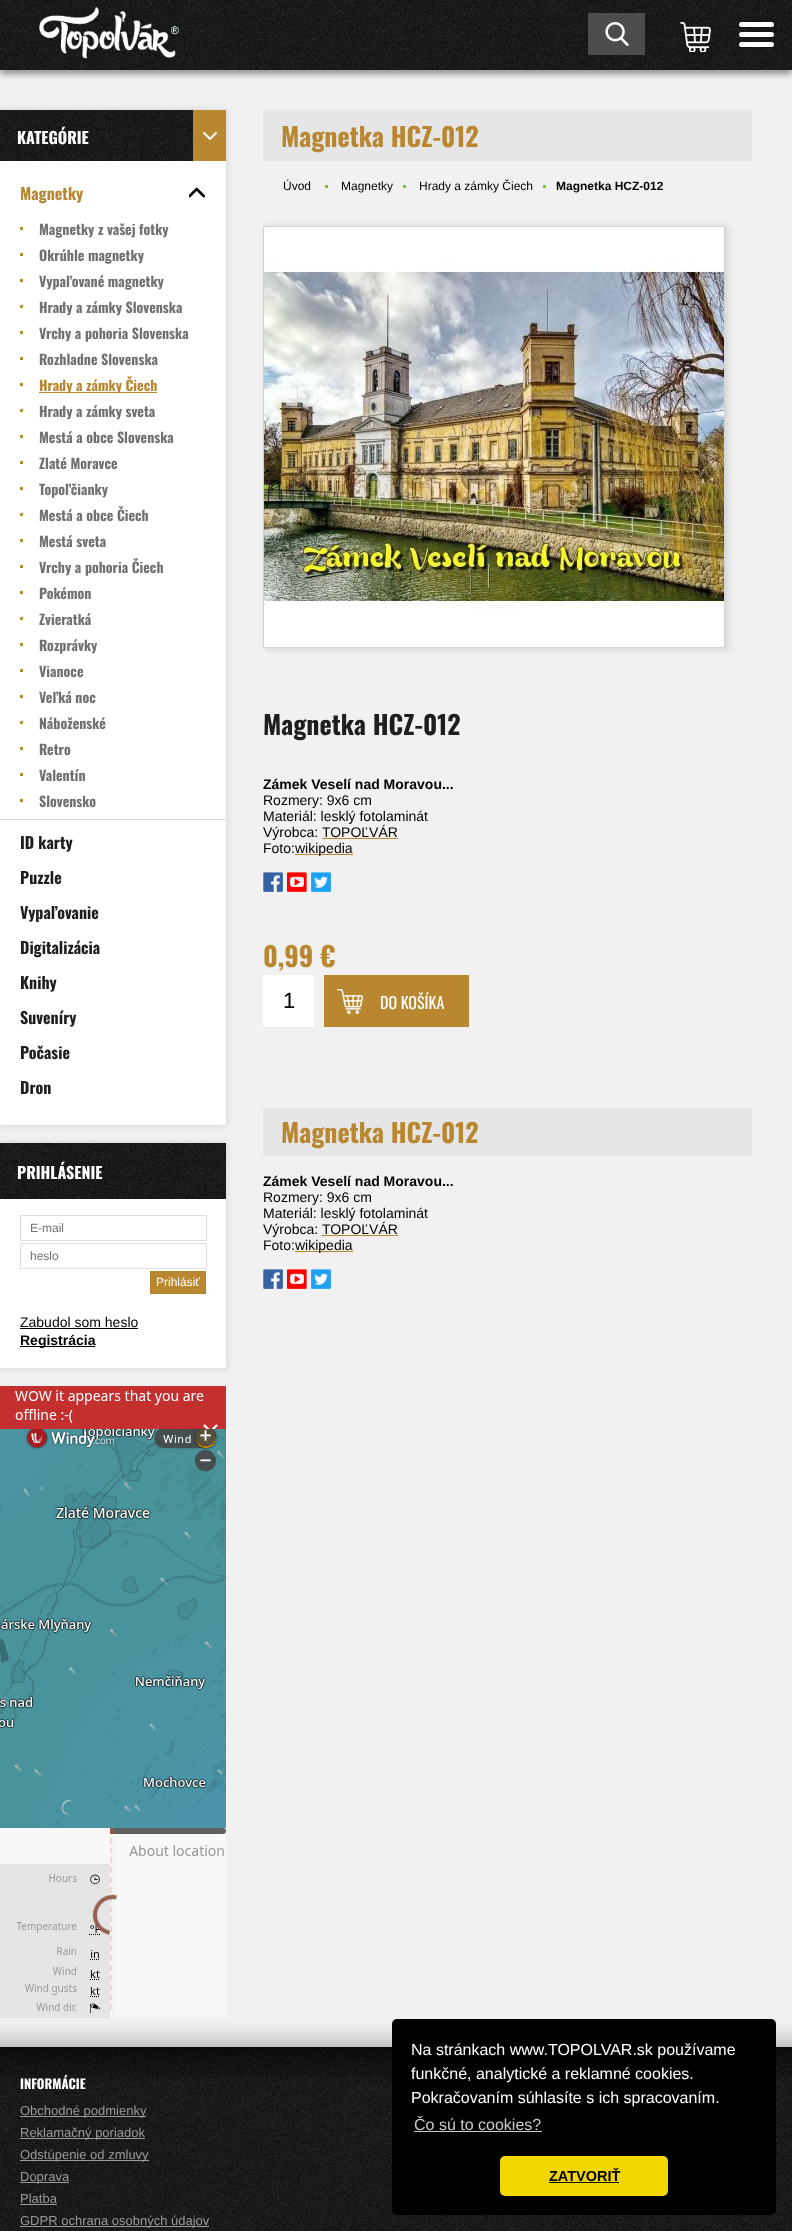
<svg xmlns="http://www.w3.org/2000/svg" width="792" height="2231">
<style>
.a{font:bold 16px Oswald;fill:#fff}
.b{font:bold 16px Oswald;fill:#b88730}
.c{font:bold 14px Oswald;fill:#717171}
.d{font:bold 14px Oswald;fill:#b88730}
.e{font:bold 16px Oswald;fill:#1e1e1e}
.f{font:12px Liberation Sans;fill:#717171}
.g{font:12px Liberation Sans;fill:#fff}
.h{font:14px Liberation Sans;fill:#000}
.i{font:bold 14px Liberation Sans;fill:#000}
.j{font:bold 26px Oswald;fill:#b88730}
.k{font:12px Liberation Sans;fill:#000}
.l{font:bold 12px Liberation Sans;fill:#000}
.m{font:bold 26px Oswald;fill:#1e1e1e}
.n{font:bold 27px Oswald;fill:#b88730}
.o{font:22px Liberation Sans;fill:#000}
.p{font:16px Oswald;fill:#fff}
.q{font:bold 13px Oswald;fill:#fff}
.r{font:13px Liberation Sans;fill:#9a9a9a}
.s{font:16px Liberation Sans;fill:#fff}
.t{font:16px Liberation Sans;fill:#ccc}
.u{font:bold 14.5px Liberation Sans;fill:#000}
</style>
<rect width="100%" height="100%" fill="#f1f1f1"/>
<path fill="#04050566" filter="blur(3px)" d="M0 4h792v70H0z"/>
<image href="1.png" x="0" y="0" width="792" height="70"/>
<path fill="#4c4c4c" d="M588 13h57v42H588z"/>
<image href="2.png" x="605" y="22" width="24" height="24"/>
<image href="3.png" x="680" y="22" width="31" height="30"/>
<image href="4.png" x="39" y="6" width="141" height="53"/>
<rect fill="#00000066" filter="blur(1px)" x="739" y="22" width="35" height="5" rx="2.5"/>
<rect fill="#fff" x="739" y="22" width="35" height="5" rx="2.5"/>
<rect fill="#00000066" filter="blur(1px)" x="739" y="32" width="35" height="5" rx="2.5"/>
<rect fill="#fff" x="739" y="32" width="35" height="5" rx="2.5"/>
<rect fill="#00000066" filter="blur(1px)" x="739" y="42" width="35" height="5" rx="2.5"/>
<rect fill="#fff" x="739" y="42" width="35" height="5" rx="2.5"/>
<path fill="#0405051c" filter="blur(3px)" d="M-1 109h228v1017H-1z"/>
<path fill="#fff" d="M0 161h226v964H0z"/>
<image href="5.png" x="0" y="110" width="193" height="51"/>
<image href="6.png" x="193" y="110" width="33" height="51"/>
<image href="7.png" x="189" y="187" width="17" height="11"/>
<path fill="#d9d9d9" d="M0 819h226v1H0z"/>
<path fill="#b88730" d="M20 227h3v3H20z"/>
<path fill="#b88730" d="M20 253h3v3H20z"/>
<path fill="#b88730" d="M20 279h3v3H20z"/>
<path fill="#b88730" d="M20 305h3v3H20z"/>
<path fill="#b88730" d="M20 331h3v3H20z"/>
<path fill="#b88730" d="M20 357h3v3H20z"/>
<path fill="#b88730" d="M20 383h3v3H20z"/>
<path fill="#b88730" d="M39 392h118v1H39z"/>
<path fill="#b88730" d="M20 409h3v3H20z"/>
<path fill="#b88730" d="M20 435h3v3H20z"/>
<path fill="#b88730" d="M20 461h3v3H20z"/>
<path fill="#b88730" d="M20 487h3v3H20z"/>
<path fill="#b88730" d="M20 513h3v3H20z"/>
<path fill="#b88730" d="M20 539h3v3H20z"/>
<path fill="#b88730" d="M20 565h3v3H20z"/>
<path fill="#b88730" d="M20 591h3v3H20z"/>
<path fill="#b88730" d="M20 617h3v3H20z"/>
<path fill="#b88730" d="M20 643h3v3H20z"/>
<path fill="#b88730" d="M20 669h3v3H20z"/>
<path fill="#b88730" d="M20 695h3v3H20z"/>
<path fill="#b88730" d="M20 721h3v3H20z"/>
<path fill="#b88730" d="M20 747h3v3H20z"/>
<path fill="#b88730" d="M20 773h3v3H20z"/>
<path fill="#b88730" d="M20 799h3v3H20z"/>
<path fill="#0405051c" filter="blur(3px)" d="M-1 1142h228v227H-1z"/>
<path fill="#fff" d="M0 1199h226v169H0z"/>
<image href="8.png" x="0" y="1143" width="226" height="56"/>
<path fill="none" stroke="#dedede" d="M20.5 1215.5h186v25H20.5z"/>
<path fill="none" stroke="#dedede" d="M20.5 1243.5h186v25H20.5z"/>
<path fill="#b88730" d="M150 1271h56v23H150z"/>
<path fill="#000" d="M20 1328h118v1H20z"/>
<path fill="#000" d="M20 1346h75v1H20z"/>
<image href="9.png" x="0" y="1386" width="226" height="632"/>
<path fill="#e6e6e6" d="M263 110h489v51H263z"/>
<path fill="#78c723" d="M325 185h3v3H325z"/>
<path fill="#78c723" d="M403 185h3v3H403z"/>
<path fill="#78c723" d="M543 185h3v3H543z"/>
<path fill="#0405051c" filter="blur(3px)" d="M265 226h464v424H265z"/>
<path fill="none" stroke="#d2d2d2" d="M263.5 226.5h461v421H263.5z"/>
<image href="10.png" x="264" y="227" width="460" height="420"/>
<path fill="#b88730" d="M295 854h58v1H295z"/>
<image href="11.png" x="263" y="872" width="20" height="20"/>
<image href="12.png" x="287" y="872" width="20" height="20"/>
<image href="13.png" x="311" y="872" width="20" height="20"/>
<path fill="#fff" d="M263 975h51v52H263z"/>
<path fill="#b88730" d="M324 975h145v52H324z"/>
<image href="14.png" x="337" y="989" width="26" height="25"/>
<path fill="#e6e6e6" d="M263 1108h489v48H263z"/>
<path fill="#b88730" d="M295 1251h58v1H295z"/>
<image href="11.png" x="263" y="1269" width="20" height="20"/>
<image href="12.png" x="287" y="1269" width="20" height="20"/>
<image href="13.png" x="311" y="1269" width="20" height="20"/>
<image href="15.png" x="0" y="2047" width="792" height="184"/>
<image href="16.png" x="0" y="2018" width="792" height="29"/>
<image href="17.png" x="0" y="2047" width="792" height="31"/>
<path fill="#9a9a9a" d="M20 2116h126v1H20z"/>
<path fill="#9a9a9a" d="M20 2138h125v1H20z"/>
<path fill="#9a9a9a" d="M20 2160h129v1H20z"/>
<path fill="#9a9a9a" d="M20 2182h49v1H20z"/>
<path fill="#9a9a9a" d="M20 2204h37v1H20z"/>
<path fill="#9a9a9a" d="M20 2226h189v1H20z"/>
<rect fill="#000" x="392" y="2019" width="384" height="196" rx="5"/>
<path fill="#ccc" d="M414 2131h128v1H414z"/>
<rect fill="#f1d600" x="500" y="2156" width="168" height="40" rx="5"/>
<path fill="#000" d="M549 2182h70v1H549z"/>
<text class="a" x="17" y="144">KATEGÓRIE</text>
<text class="b" x="20" y="200">Magnetky</text>
<text class="c" x="39" y="235">Magnetky z vašej fotky</text>
<text class="c" x="39" y="261">Okrúhle magnetky</text>
<text class="c" x="39" y="287">Vypaľované magnetky</text>
<text class="c" x="39" y="313">Hrady a zámky Slovenska</text>
<text class="c" x="39" y="339">Vrchy a pohoria Slovenska</text>
<text class="c" x="39" y="365">Rozhladne Slovenska</text>
<text class="d" x="39" y="391">Hrady a zámky Čiech</text>
<text class="c" x="39" y="417">Hrady a zámky sveta</text>
<text class="c" x="39" y="443">Mestá a obce Slovenska</text>
<text class="c" x="39" y="469">Zlaté Moravce</text>
<text class="c" x="39" y="495">Topoľčianky</text>
<text class="c" x="39" y="521">Mestá a obce Čiech</text>
<text class="c" x="39" y="547">Mestá sveta</text>
<text class="c" x="39" y="573">Vrchy a pohoria Čiech</text>
<text class="c" x="39" y="599">Pokémon</text>
<text class="c" x="39" y="625">Zvieratká</text>
<text class="c" x="39" y="651">Rozprávky</text>
<text class="c" x="39" y="677">Vianoce</text>
<text class="c" x="39" y="703">Veľká noc</text>
<text class="c" x="39" y="729">Náboženské</text>
<text class="c" x="39" y="755">Retro</text>
<text class="c" x="39" y="781">Valentín</text>
<text class="c" x="39" y="807">Slovensko</text>
<text class="e" x="20" y="849">ID karty</text>
<text class="e" x="20" y="884">Puzzle</text>
<text class="e" x="20" y="919">Vypaľovanie</text>
<text class="e" x="20" y="954">Digitalizácia</text>
<text class="e" x="20" y="989">Knihy</text>
<text class="e" x="20" y="1024">Suveníry</text>
<text class="e" x="20" y="1059">Počasie</text>
<text class="e" x="20" y="1094">Dron</text>
<text class="a" x="17" y="1179">PRIHLÁSENIE</text>
<text class="f" x="30" y="1232">E-mail</text>
<text class="f" x="30" y="1260">heslo</text>
<text class="g" x="156" y="1286">Prihlásiť</text>
<text class="h" x="20" y="1327">Zabudol som heslo</text>
<text class="i" x="20" y="1345">Registrácia</text>
<text class="j" x="281" y="147">Magnetka HCZ-012</text>
<text class="k" x="283" y="190">Úvod</text>
<text class="k" x="341" y="190">Magnetky</text>
<text class="k" x="419" y="190">Hrady a zámky Čiech</text>
<text class="l" x="556" y="190">Magnetka HCZ-012</text>
<text class="m" x="263" y="735">Magnetka HCZ-012</text>
<text class="i" x="263" y="789">Zámek Veselí nad Moravou...</text>
<text class="h" x="263" y="805">Rozmery: 9x6 cm</text>
<text class="h" x="263" y="821">Materiál: lesklý fotolaminát</text>
<text class="h" x="263" y="837">Výrobca: TOPOĽVÁR</text>
<path fill="#b88730" d="M322 838h76v1H322z"/>
<text class="h" x="263" y="853">Foto:</text>
<text class="h" x="295" y="853">wikipedia</text>
<text class="n" x="263" y="967">0,99 €</text>
<text class="o" x="283" y="1008">1</text>
<text class="p" x="380" y="1009">DO KOŠÍKA</text>
<text class="j" x="281" y="1143">Magnetka HCZ-012</text>
<text class="i" x="263" y="1186">Zámek Veselí nad Moravou...</text>
<text class="h" x="263" y="1202">Rozmery: 9x6 cm</text>
<text class="h" x="263" y="1218">Materiál: lesklý fotolaminát</text>
<text class="h" x="263" y="1234">Výrobca: TOPOĽVÁR</text>
<path fill="#b88730" d="M322 1235h76v1H322z"/>
<text class="h" x="263" y="1250">Foto:</text>
<text class="h" x="295" y="1250">wikipedia</text>
<text class="q" x="20" y="2089">INFORMÁCIE</text>
<text class="r" x="20" y="2115">Obchodné podmienky</text>
<text class="r" x="20" y="2137">Reklamačný poriadok</text>
<text class="r" x="20" y="2159">Odstúpenie od zmluvy</text>
<text class="r" x="20" y="2181">Doprava</text>
<text class="r" x="20" y="2203">Platba</text>
<text class="r" x="20" y="2225">GDPR ochrana osobných údajov</text>
<text class="s" x="411" y="2055">Na stránkach www.TOPOLVAR.sk používame</text>
<text class="s" x="411" y="2079">funkčné, analytické a reklamné cookies.</text>
<text class="s" x="411" y="2103">Pokračovaním súhlasíte s ich spracovaním.</text>
<text class="t" x="414" y="2130">Čo sú to cookies?</text>
<text class="u" x="549" y="2181">ZATVORIŤ</text>
</svg>
